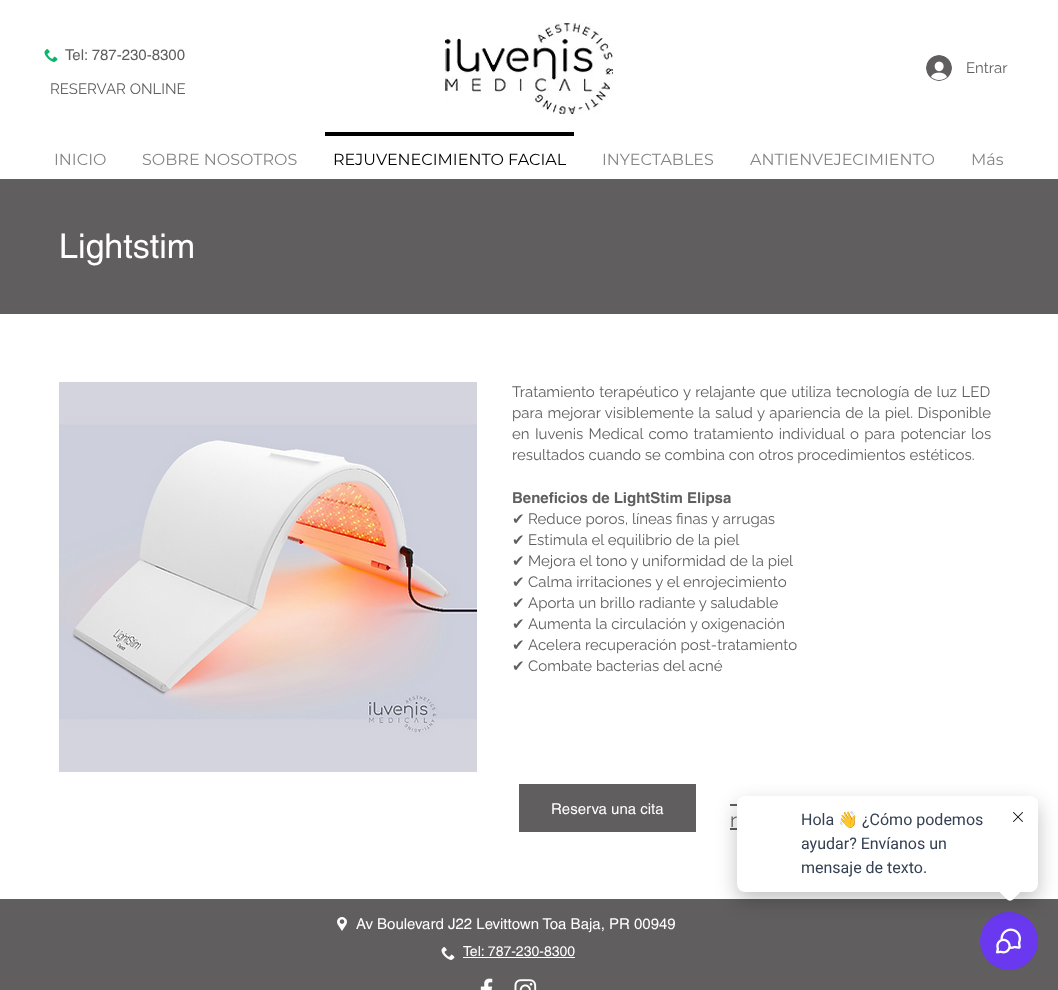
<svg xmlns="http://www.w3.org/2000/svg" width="1058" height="990">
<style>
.a{font:15px helvetica;fill:#605e5e}
.b{font:15px Raleway;fill:#605e5e}
.c{font:16px Montserrat;fill:#858585}
.d{font:16px Montserrat;fill:#000}
.e{font:34px helvetica;fill:#fff}
.f{font:bold 15px helvetica;fill:#605e5e}
.g{font:15px DejaVu Sans;fill:#605e5e}
.h{font:15px helvetica;fill:#fff}
.i{font:20px Raleway;fill:#605e5e}
.j{font:14px helvetica;fill:#fff}
.k{font:16px Roboto;fill:#344054}
.l{font:16px Noto Color Emoji;fill:#344054}
</style>
<rect width="100%" height="100%" fill="#fff"/>
<image href="1.png" x="44" y="49" width="14" height="13"/>
<image href="2.png" x="445" y="23" width="168" height="91"/>
<image href="3.png" x="926" y="55" width="26" height="26"/>
<path fill="#000" d="M325 132h249v4H325z"/>
<path fill="#605e5e" d="M0 179h1058v135H0z"/>
<image href="4.png" x="59" y="382" width="418" height="390"/>
<path fill="#605e5e" d="M519 784h177v48H519z"/>
<path fill="#605e5e" d="M730 804h7v2H730z"/>
<path fill="#605e5e" d="M730 828h7v2H730z"/>
<path fill="#605e5e" d="M0 899h1058v91H0z"/>
<image href="5.png" x="337" y="917" width="10" height="14"/>
<image href="6.png" x="441" y="947" width="14" height="13"/>
<path fill="#fff" d="M463 957h112v1H463z"/>
<image href="7.png" x="480" y="978" width="13" height="12"/>
<image href="8.png" x="514" y="979" width="23" height="11"/>
<circle fill="#6938ef" cx="1009" cy="941" r="29"/>
<image href="10.png" x="996" y="928" width="25" height="26"/>
<rect fill="#0000003d" filter="blur(10px)" x="737" y="804" width="301" height="96" rx="8"/>
<rect fill="#fff" x="737" y="796" width="301" height="96" rx="8"/>
<path fill="#fff" d="M1013 876.5l8.5 8.5c1.5 1.5 1.5 4.5 0 6l-8.5 8.5c-1.5 1.5-4.5 1.5-6 0l-8.5-8.5c-1.5-1.5-1.5-4.5 0-6l8.5-8.5c1.5-1.5 4.5-1.5 6 0z"/>
<image href="9.png" x="1013" y="812" width="10" height="10"/>
<text class="a" x="65" y="60">Tel: 787-230-8300</text>
<text class="b" x="966" y="73">Entrar</text>
<text class="b" x="50" y="94">RESERVAR ONLINE</text>
<text class="c" x="54" y="165">INICIO</text>
<text class="c" x="142" y="165">SOBRE NOSOTROS</text>
<text class="d" x="333" y="165">REJUVENECIMIENTO FACIAL</text>
<text class="c" x="602" y="165">INYECTABLES</text>
<text class="c" x="750" y="165">ANTIENVEJECIMIENTO</text>
<text class="c" x="971" y="165">Más</text>
<text class="e" x="59" y="258">Lightstim</text>
<text class="b" x="512" y="397" word-spacing="0.75">Tratamiento terapéutico y relajante que utiliza tecnología de luz LED</text>
<text class="b" x="512" y="418" word-spacing="0.75">para mejorar visiblemente la salud y apariencia de la piel. Disponible</text>
<text class="b" x="512" y="439" word-spacing="1.5">en Iuvenis Medical como tratamiento individual o para potenciar los</text>
<text class="b" x="512" y="460">resultados cuando se combina con otros procedimientos estéticos.</text>
<text class="f" x="512" y="503">Beneficios de LightStim Elipsa</text>
<text class="g" x="512" y="524">✔</text>
<text class="b" x="528" y="524">Reduce poros, líneas finas y arrugas</text>
<text class="g" x="512" y="545">✔</text>
<text class="b" x="528" y="545">Estimula el equilibrio de la piel</text>
<text class="g" x="512" y="566">✔</text>
<text class="b" x="528" y="566">Mejora el tono y uniformidad de la piel</text>
<text class="g" x="512" y="587">✔</text>
<text class="b" x="528" y="587">Calma irritaciones y el enrojecimiento</text>
<text class="g" x="512" y="608">✔</text>
<text class="b" x="528" y="608">Aporta un brillo radiante y saludable</text>
<text class="g" x="512" y="629">✔</text>
<text class="b" x="528" y="629">Aumenta la circulación y oxigenación</text>
<text class="g" x="512" y="650">✔</text>
<text class="b" x="528" y="650">Acelera recuperación post-tratamiento</text>
<text class="g" x="512" y="671">✔</text>
<text class="b" x="528" y="671">Combate bacterias del acné</text>
<text class="h" x="551" y="814">Reserva una cita</text>
<text class="i" x="730" y="827">r</text>
<text class="h" x="356" y="929">Av Boulevard J22 Levittown Toa Baja, PR 00949</text>
<text class="j" x="463" y="956">Tel: 787-230-8300</text>
<text class="k" x="801" y="825">Hola</text>
<text class="l" x="838" y="825">👋</text>
<text class="k" x="862" y="825">¿Cómo podemos</text>
<text class="k" x="801" y="849">ayudar? Envíanos un</text>
<text class="k" x="801" y="873">mensaje de texto.</text>
</svg>
